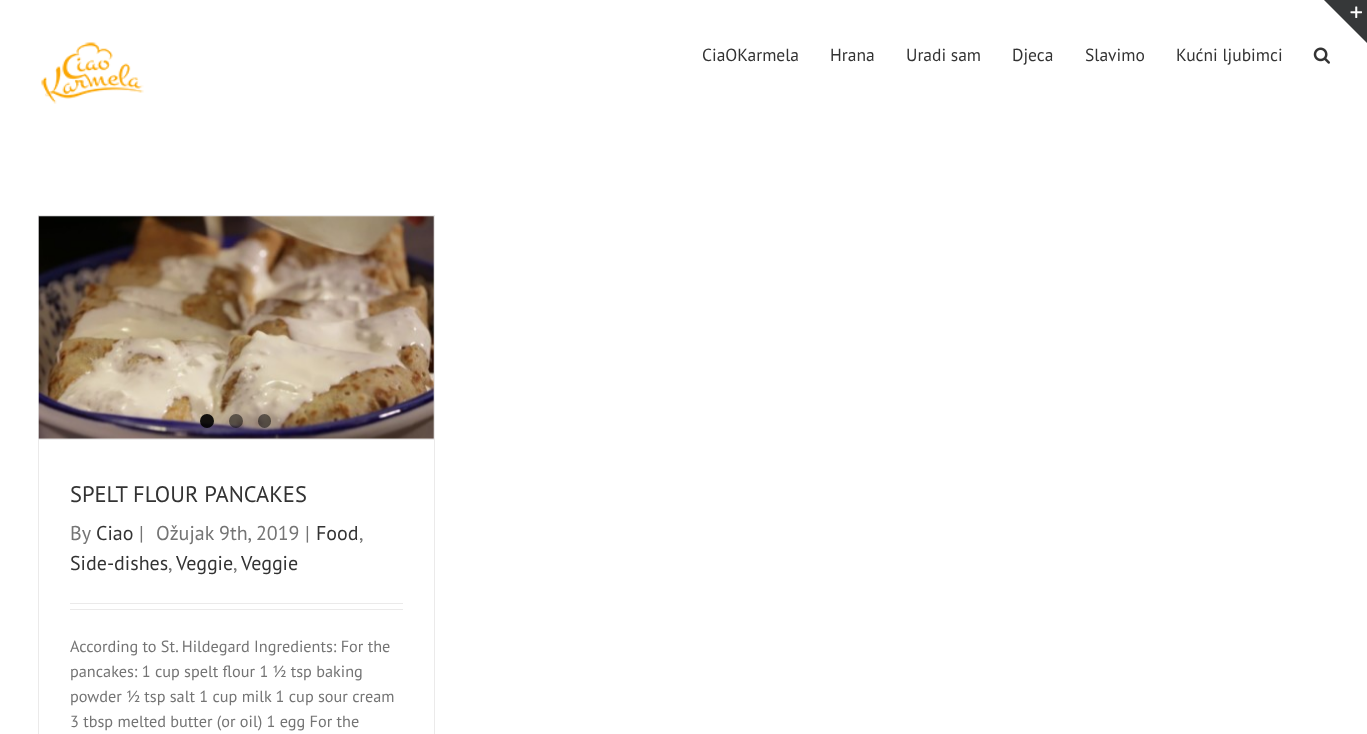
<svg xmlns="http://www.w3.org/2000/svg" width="1367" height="734">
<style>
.a{font:17.5px PT Sans;fill:#333}
.b{font:22.5px PT Sans;fill:#333}
.c{font:20px PT Sans;fill:#747474}
.d{font:20px PT Sans;fill:#333}
.e{font:16.25px PT Sans;fill:#747474}
</style>
<rect width="100%" height="100%" fill="#fff"/>
<path fill="#363839" d="M1324 0h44v44z"/>
<image href="1.png" x="1350" y="6" width="12" height="12"/>
<image href="2.png" x="41" y="42" width="103" height="62"/>
<image href="3.png" x="1313" y="47" width="17" height="17"/>
<path fill="#ebeaea" d="M38 215h397v1H38z"/>
<path fill="#ebeaea" d="M434 215h1v519H434z"/>
<path fill="#ebeaea" d="M38 215h1v519H38z"/>
<path fill="#ebeaea" d="M39 439h395v1H39z"/>
<image href="4.png" x="38" y="216" width="396" height="223"/>
<circle fill="#000000e6" cx="207" cy="421" r="7"/>
<circle fill="#00000080" cx="236" cy="421" r="7"/>
<rect fill="#00000080" x="258" y="414" width="13" height="14" rx="6.5"/>
<path fill="#ebeaea" d="M70 603h333v1H70z"/>
<path fill="#ebeaea" d="M70 609h333v1H70z"/>
<text class="a" x="702" y="61">CiaOKarmela</text>
<text class="a" x="830" y="61">Hrana</text>
<text class="a" x="906" y="61">Uradi sam</text>
<text class="a" x="1012" y="61">Djeca</text>
<text class="a" x="1085" y="61">Slavimo</text>
<text class="a" x="1176" y="61">Kućni ljubimci</text>
<text class="b" x="70" y="502">SPELT FLOUR PANCAKES</text>
<text class="c" x="70" y="540">By</text>
<text class="d" x="96" y="540">Ciao</text>
<text class="c" x="139" y="540">|</text>
<text class="c" x="156" y="540">Ožujak 9th, 2019</text>
<text class="c" x="305" y="540">|</text>
<text class="d" x="316" y="540">Food</text>
<text class="c" x="359" y="540">,</text>
<text class="d" x="70" y="570">Side-dishes</text>
<text class="c" x="168" y="570">,</text>
<text class="d" x="176" y="570">Veggie</text>
<text class="c" x="233" y="570">,</text>
<text class="d" x="241" y="570">Veggie</text>
<text class="e" x="70" y="652">According to St. Hildegard Ingredients: For the</text>
<text class="e" x="70" y="677">pancakes: 1 cup spelt flour 1 ½ tsp baking</text>
<text class="e" x="70" y="702">powder ½ tsp salt 1 cup milk 1 cup sour cream</text>
<text class="e" x="70" y="727">3 tbsp melted butter (or oil) 1 egg For the</text>
</svg>
